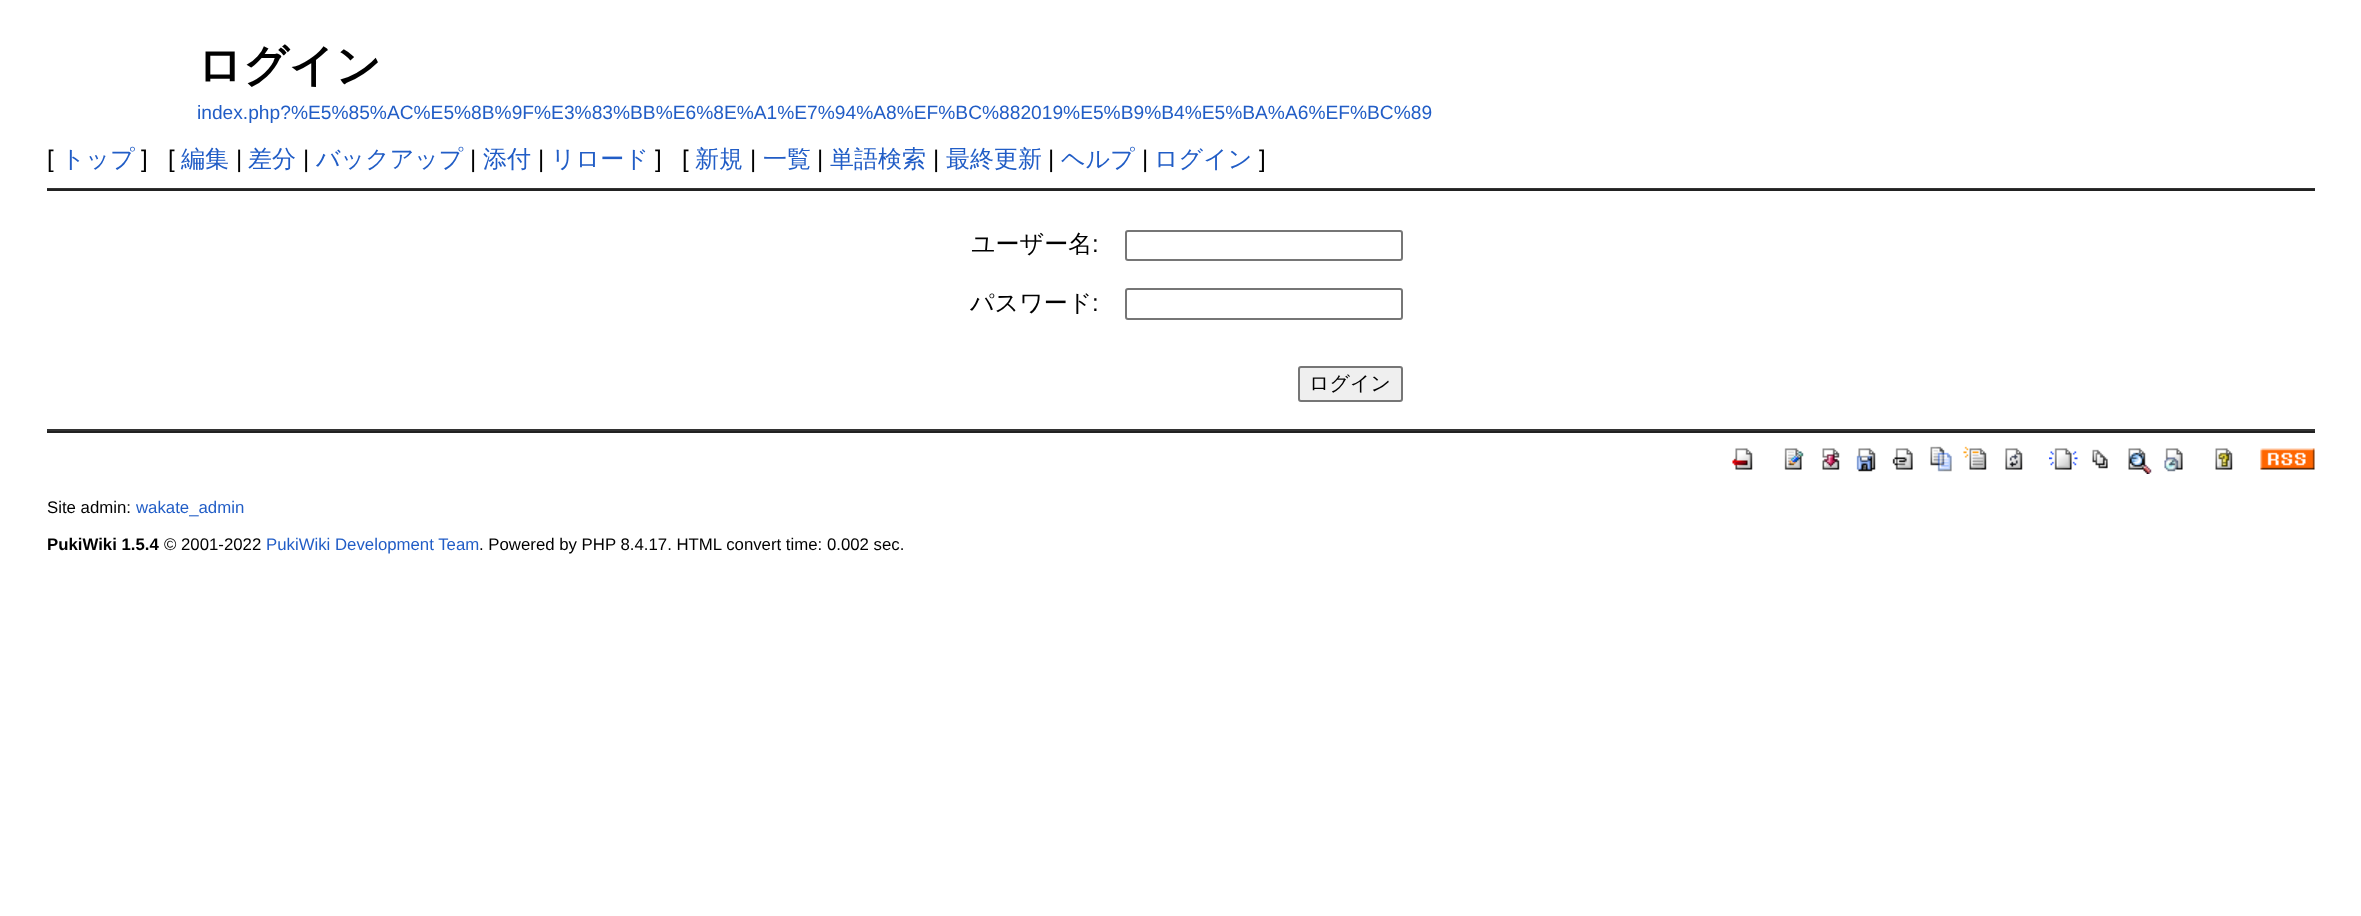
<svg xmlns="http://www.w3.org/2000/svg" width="2361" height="916">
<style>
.a{font:bold 45px WenQuanYi Zen Hei;fill:#000}
.b{font:19.2px Liberation Sans;fill:#215dc6}
.c{font:24px Liberation Sans;fill:#000}
.d{font:500 24px WenQuanYi Zen Hei;fill:#215dc6}
.e{font:500 24px WenQuanYi Zen Hei;fill:#000}
.f{font:500 20px WenQuanYi Zen Hei;fill:#000}
.g{font:16.8px Liberation Sans;fill:#000}
.h{font:16.8px Liberation Sans;fill:#215dc6}
.i{font:bold 16.8px Liberation Sans;fill:#000}
</style>
<rect width="100%" height="100%" fill="#fff"/>
<path fill="#333" d="M47 188h2268v1H47z"/>
<path fill="#222" d="M47 189h2268v2H47z"/>
<rect fill="none" stroke="#767676" stroke-width="2" x="1126" y="231" width="276" height="29" rx="2"/>
<rect fill="none" stroke="#767676" stroke-width="2" x="1126" y="289" width="276" height="30" rx="2"/>
<rect fill="#efefef" stroke="#767676" stroke-width="2" x="1299" y="367" width="103" height="34" rx="2"/>
<path fill="#333" d="M47 429h2268v2H47z"/>
<path fill="#222" d="M47 431h2268v2H47z"/>
<image href="1.png" x="1732" y="448" width="21" height="22"/>
<image href="2.png" x="1784" y="448" width="20" height="22"/>
<image href="3.png" x="1822" y="448" width="18" height="22"/>
<image href="4.png" x="1856" y="448" width="20" height="24"/>
<image href="5.png" x="1892" y="448" width="21" height="22"/>
<image href="6.png" x="1930" y="446" width="22" height="26"/>
<image href="7.png" x="1963" y="446" width="24" height="24"/>
<image href="8.png" x="2005" y="448" width="18" height="22"/>
<image href="9.png" x="2049" y="448" width="29" height="22"/>
<image href="10.png" x="2092" y="449" width="16" height="20"/>
<image href="11.png" x="2128" y="448" width="24" height="26"/>
<image href="12.png" x="2164" y="448" width="19" height="24"/>
<image href="13.png" x="2215" y="448" width="18" height="22"/>
<image href="14.png" x="2260" y="448" width="55" height="22"/>
<text class="a" x="197" y="81">ログイン</text>
<text class="b" x="197" y="119">index.php?%E5%85%AC%E5%8B%9F%E3%83%BB%E6%8E%A1%E7%94%A8%EF%BC%882019%E5%B9%B4%E5%BA%A6%EF%BC%89</text>
<text class="c" x="47" y="167">[</text>
<text class="d" x="61" y="167">トップ</text>
<text class="c" x="141" y="167">]</text>
<text class="c" x="168" y="167">[</text>
<text class="d" x="181" y="167">編集</text>
<text class="c" x="236" y="167">|</text>
<text class="d" x="248" y="167">差分</text>
<text class="c" x="303" y="167">|</text>
<text class="d" x="316" y="167">バックアップ</text>
<text class="c" x="470" y="167">|</text>
<text class="d" x="483" y="167">添付</text>
<text class="c" x="538" y="167">|</text>
<text class="d" x="551" y="167">リロード</text>
<text class="c" x="655" y="167">]</text>
<text class="c" x="682" y="167">[</text>
<text class="d" x="695" y="167">新規</text>
<text class="c" x="750" y="167">|</text>
<text class="d" x="763" y="167">一覧</text>
<text class="c" x="817" y="167">|</text>
<text class="d" x="830" y="167">単語検索</text>
<text class="c" x="933" y="167">|</text>
<text class="d" x="946" y="167">最終更新</text>
<text class="c" x="1048" y="167">|</text>
<text class="d" x="1061" y="167">ヘルプ</text>
<text class="c" x="1142" y="167">|</text>
<text class="d" x="1154" y="167">ログイン</text>
<text class="c" x="1259" y="167">]</text>
<text class="e" x="971" y="252">ユーザー名</text>
<text class="c" x="1092" y="252">:</text>
<text class="e" x="970" y="311">パスワード</text>
<text class="c" x="1092" y="311">:</text>
<text class="f" x="1309" y="390">ログイン</text>
<text class="g" x="47" y="513">Site admin:</text>
<text class="h" x="136" y="513">wakate_admin</text>
<text class="i" x="47" y="550">PukiWiki 1.5.4</text>
<text class="g" x="164" y="550">© 2001-2022</text>
<text class="h" x="266" y="550">PukiWiki Development Team</text>
<text class="g" x="479" y="550">. Powered by PHP 8.4.17. HTML convert time: 0.002 sec.</text>
</svg>
